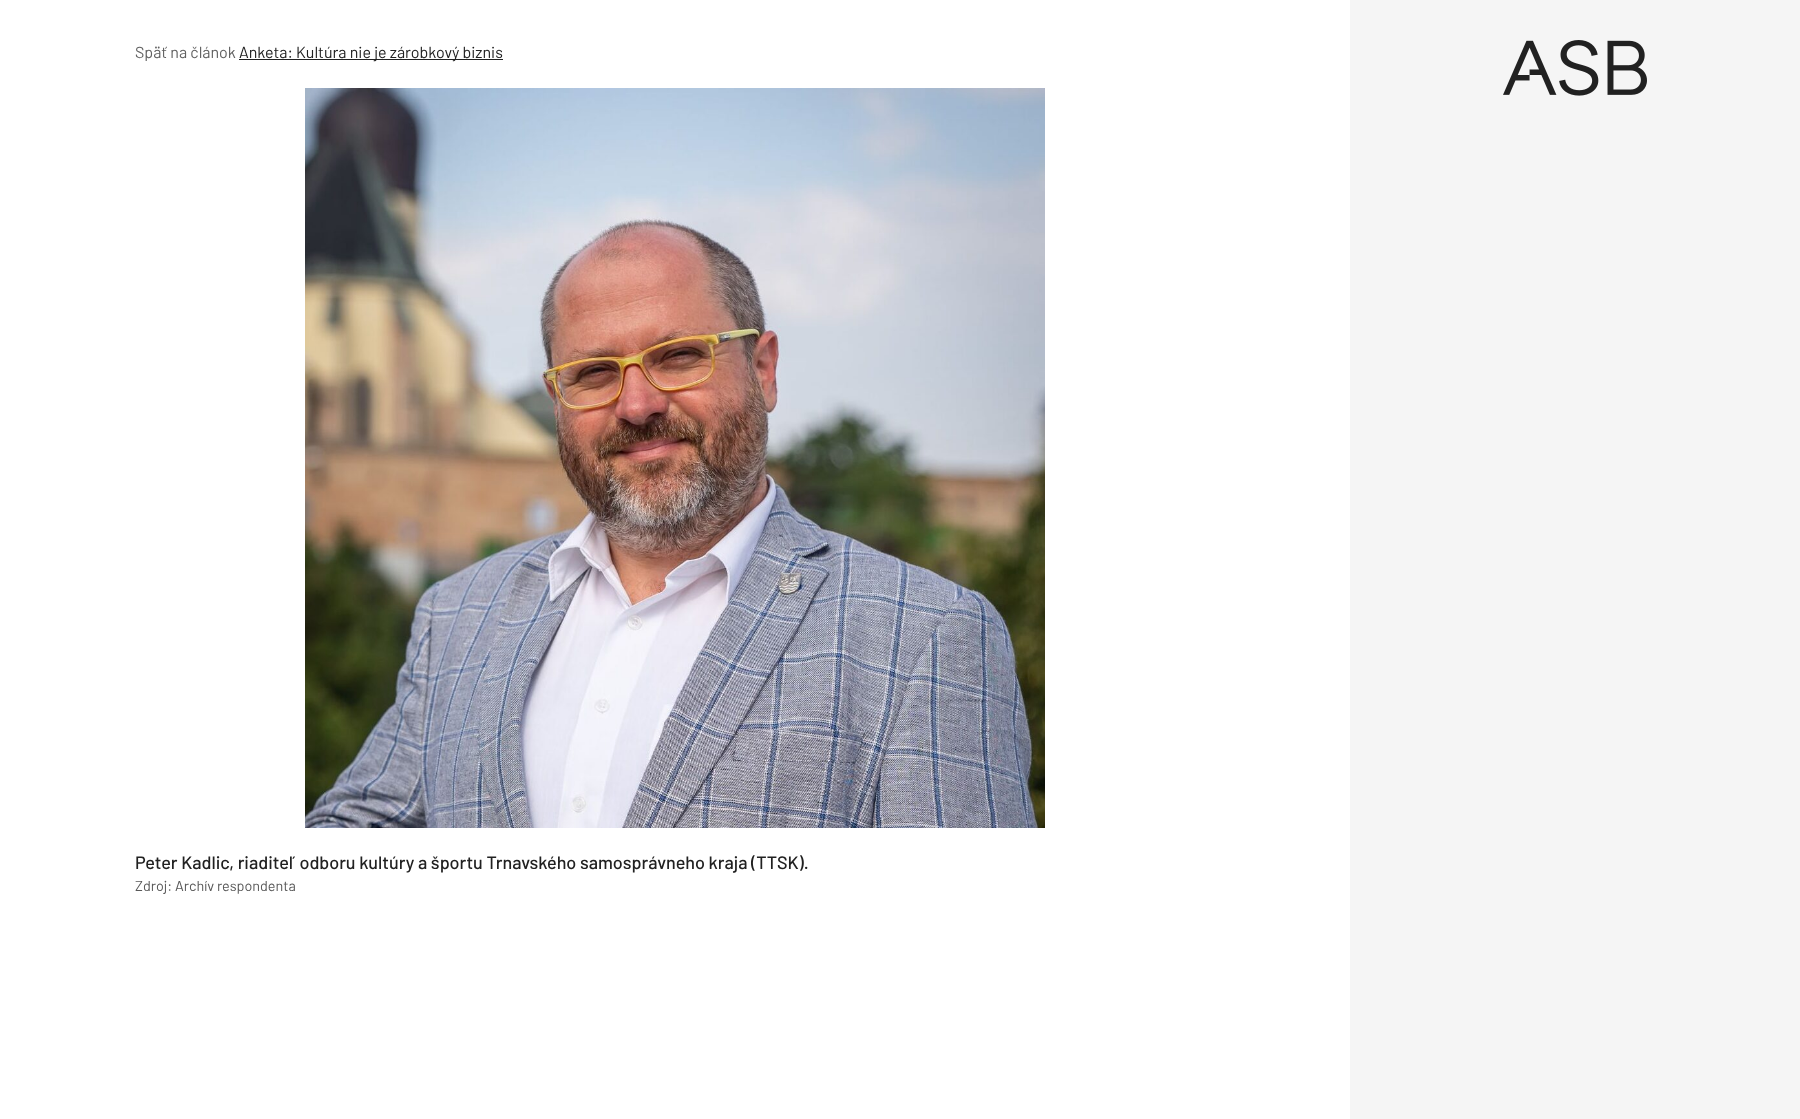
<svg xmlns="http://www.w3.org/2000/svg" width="1800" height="1119">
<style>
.a{font:16px Barlow;fill:#616161}
.b{font:16px Barlow;fill:#212121}
.c{font:500 18px Barlow;fill:#212121}
.d{font:14.4px Barlow;fill:#595959}
</style>
<rect width="100%" height="100%" fill="#fff"/>
<path fill="#212121" d="M239 59h264v1H239z"/>
<image href="1.png" x="305" y="88" width="740" height="740"/>
<path fill="#f5f5f5" d="M1350 0h450v1119H1350z"/>
<image href="2.png" x="1503" y="40" width="144" height="56"/>
<text class="a" x="135" y="58">Späť na článok</text>
<text class="b" x="239" y="58">Anketa: Kultúra nie je zárobkový biznis</text>
<text class="c" x="135" y="869">Peter Kadlic, riaditeľ odboru kultúry a športu Trnavského samosprávneho kraja (TTSK).</text>
<text class="d" x="135" y="891">Zdroj: Archív respondenta</text>
</svg>
